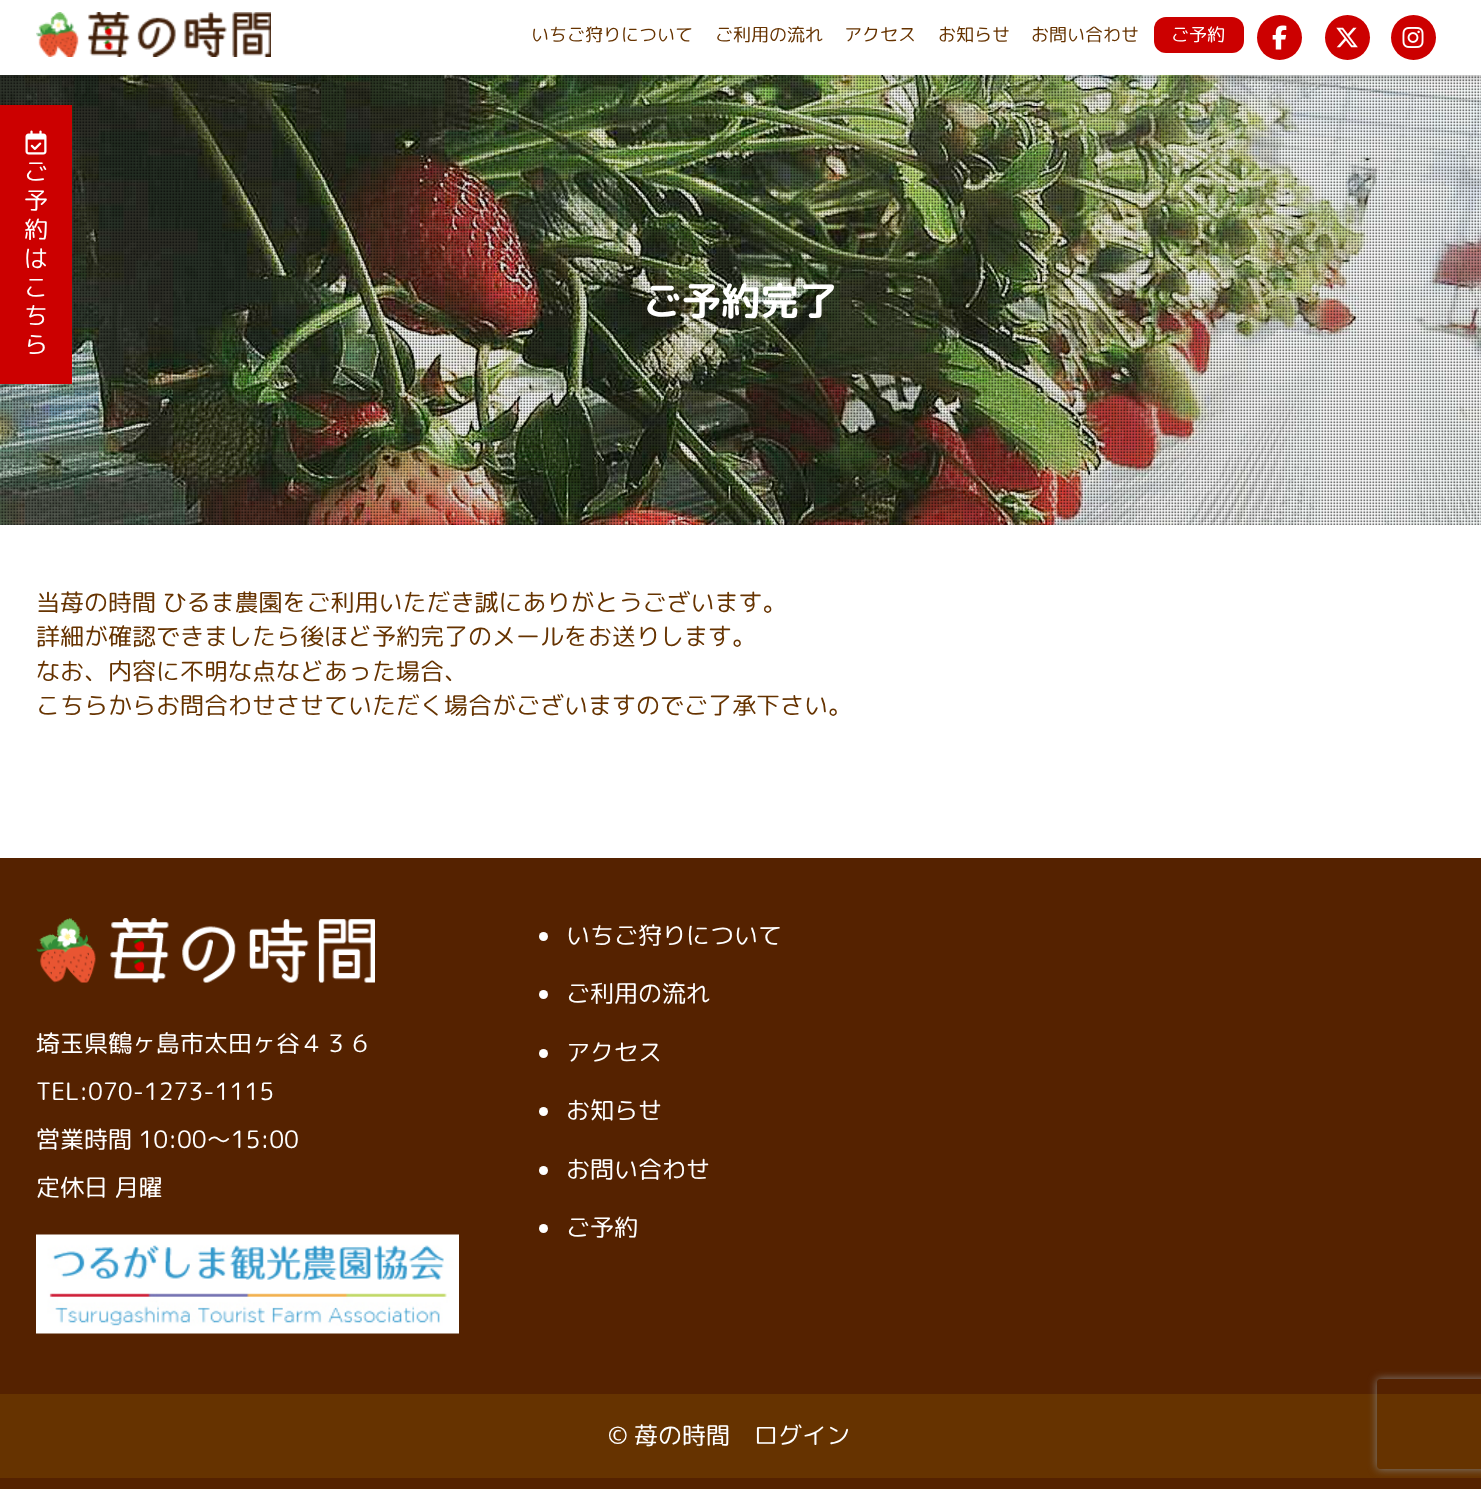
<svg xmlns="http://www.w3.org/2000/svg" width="1481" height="1489">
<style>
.a{font:18px 'Rounded Mplus 1c';fill:#630}
.b{font:18px 'Rounded Mplus 1c';fill:#fff}
.c{font:24px 'Rounded Mplus 1c';fill:#fff}
.d{font:bold 39px 'Rounded Mplus 1c Bold';fill:#fff}
.e{font:24px 'Rounded Mplus 1c';fill:#630}
</style>
<defs>
<clipPath id="clip1"><path d="M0 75h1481v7H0z"/></clipPath>
<clipPath id="clip2"><path d="M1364 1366h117v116h-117zm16 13h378c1.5 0 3 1.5 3 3v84c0 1.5-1.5 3-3 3h-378c-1.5 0-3-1.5-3-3v-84c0-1.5 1.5-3 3-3z" clip-rule="evenodd"/></clipPath>
</defs>
<rect width="100%" height="100%" fill="#fff"/>
<image href="6.png" x="0" y="75" width="1481" height="450"/>
<g clip-path="url(#clip1)">
<path fill="#00000033" filter="blur(3px)" d="M-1 0h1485v78H-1z"/>
</g>
<image href="1.png" x="36" y="12" width="235" height="45"/>
<rect fill="#c00" x="1154" y="17" width="90" height="36" rx="12"/>
<circle fill="#c00" cx="1279.5" cy="37.5" r="22.5"/>
<image href="2.png" x="1272" y="25" width="15" height="25"/>
<circle fill="#c00" cx="1347.5" cy="37.5" r="22.5"/>
<image href="3.png" x="1336" y="27" width="22" height="21"/>
<circle fill="#c00" cx="1413.5" cy="37.5" r="22.5"/>
<image href="4.png" x="1402" y="27" width="22" height="21"/>
<path fill="#c00" d="M0 105h72v279H0z"/>
<image href="5.png" x="25" y="130" width="22" height="25"/>
<path fill="#520" d="M0 858h1481v631H0z"/>
<image href="7.png" x="36" y="918" width="339" height="65"/>
<image href="8.png" x="36" y="1234" width="423" height="100"/>
<circle fill="#fff" cx="543.5" cy="936.5" r="4.5"/>
<circle fill="#fff" cx="543.5" cy="994.5" r="4.5"/>
<circle fill="#fff" cx="543.5" cy="1053.5" r="4.5"/>
<circle fill="#fff" cx="543.5" cy="1111.5" r="4.5"/>
<circle fill="#fff" cx="543.5" cy="1170.5" r="4.5"/>
<circle fill="#fff" cx="543.5" cy="1228.5" r="4.5"/>
<path fill="#630" d="M0 1394h1481v84H0z"/>
<g clip-path="url(#clip2)">
<rect fill="#808080" filter="blur(4px)" x="1377" y="1379" width="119" height="90" rx="3"/>
</g>
<text class="a" x="531" y="41">いちご狩りについて</text>
<text class="a" x="715" y="41">ご利用の流れ</text>
<text class="a" x="844" y="41">アクセス</text>
<text class="a" x="938" y="41">お知らせ</text>
<text class="a" x="1031" y="41">お問い合わせ</text>
<text class="b" x="1171" y="41">ご予約</text>
<text class="c" x="24" y="180">ご</text>
<text class="c" x="24" y="209">予</text>
<text class="c" x="24" y="238">約</text>
<text class="c" x="24" y="267">は</text>
<text class="c" x="24" y="296">こ</text>
<text class="c" x="24" y="324">ち</text>
<text class="c" x="24" y="353">ら</text>
<text class="d" x="643" y="315">ご予約完了</text>
<text class="e" x="36" y="611">当苺の時間 ひるま農園をご利用いただき誠にありがとうございます。</text>
<text class="e" x="36" y="645">詳細が確認できましたら後ほど予約完了のメールをお送りします。</text>
<text class="e" x="36" y="680">なお、内容に不明な点などあった場合、</text>
<text class="e" x="36" y="714">こちらからお問合わせさせていただく場合がございますのでご了承下さい。</text>
<text class="c" x="36" y="1052">埼玉県鶴ヶ島市太田ヶ谷４３６</text>
<text class="c" x="36" y="1100">TEL:070-1273-1115</text>
<text class="c" x="36" y="1148">営業時間 10:00～15:00</text>
<text class="c" x="36" y="1196">定休日 月曜</text>
<text class="c" x="566" y="944">いちご狩りについて</text>
<text class="c" x="566" y="1002">ご利用の流れ</text>
<text class="c" x="566" y="1061">アクセス</text>
<text class="c" x="566" y="1119">お知らせ</text>
<text class="c" x="566" y="1178">お問い合わせ</text>
<text class="c" x="566" y="1236">ご予約</text>
<text class="c" x="608" y="1444">© 苺の時間</text>
<text class="c" x="754" y="1444">ログイン</text>
</svg>
